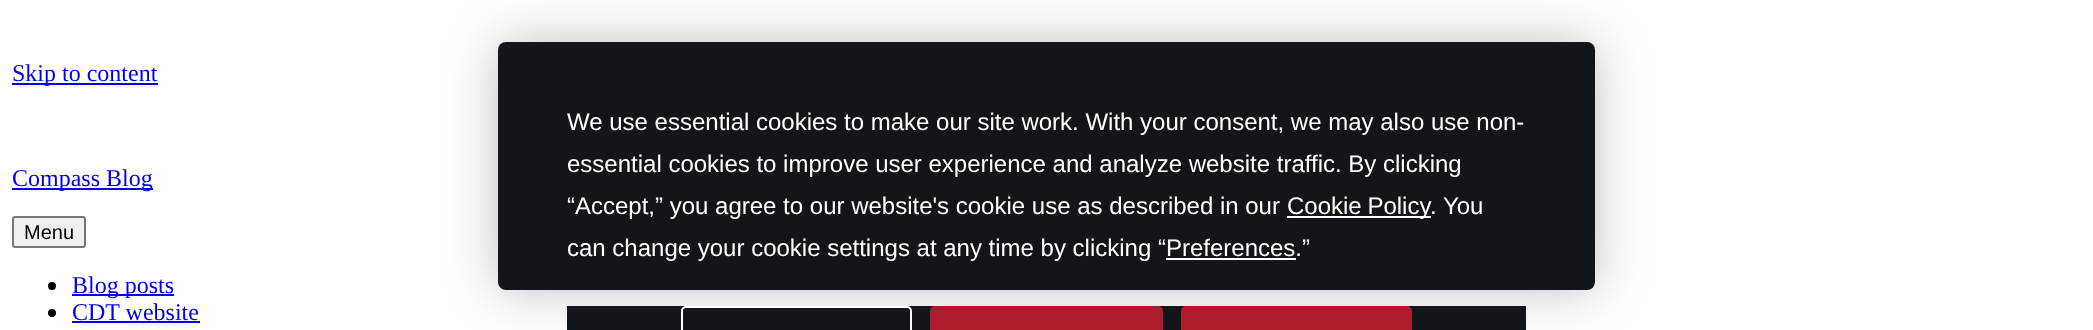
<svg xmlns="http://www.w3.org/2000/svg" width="2093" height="330">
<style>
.a{font:24px Liberation Serif;fill:#00e}
.b{font:20px Liberation Sans;fill:#000}
.c{font:24px Liberation Sans;fill:#fff}
</style>
<rect width="100%" height="100%" fill="#fff"/>
<path fill="#00e" d="M12 83h146v2H12z"/>
<path fill="#00e" d="M12 188h141v2H12z"/>
<rect fill="#efefef" stroke="#767676" stroke-width="2" x="13" y="217" width="72" height="30" rx="2"/>
<circle fill="#000" cx="52" cy="286" r="4"/>
<path fill="#00e" d="M72 294h102v2H72z"/>
<circle fill="#000" cx="52" cy="313" r="4"/>
<path fill="#00e" d="M72 321h128v2H72z"/>
<rect fill="#00000040" filter="blur(26px)" x="498" y="42" width="1097" height="248" rx="8"/>
<rect fill="#12161a" x="498" y="42" width="1097" height="248" rx="8"/>
<path fill="#fff" d="M1287 216h144v2H1287z"/>
<path fill="#fff" d="M1166 258h130v2H1166z"/>
<path fill="#12161a" d="M567 306h959v24H567z"/>
<rect fill="none" stroke="#fff" stroke-width="2" x="682" y="307" width="229" height="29" rx="4"/>
<rect fill="#b01c2e" stroke="#b01c2e" stroke-width="2" x="931" y="307" width="231" height="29" rx="4"/>
<rect fill="#b01c2e" stroke="#b01c2e" stroke-width="2" x="1182" y="307" width="229" height="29" rx="4"/>
<text class="a" x="12" y="81">Skip to content</text>
<text class="a" x="12" y="186">Compass Blog</text>
<text class="b" x="24" y="239">Menu</text>
<text class="a" x="72" y="293">Blog posts</text>
<text class="a" x="72" y="320">CDT website</text>
<text class="c" x="567" y="130">We use essential cookies to make our site work. With your consent, we may also use non-</text>
<text class="c" x="567" y="172">essential cookies to improve user experience and analyze website traffic. By clicking</text>
<text class="c" x="567" y="214">“Accept,” you agree to our website's cookie use as described in our</text>
<text class="c" x="1287" y="214" word-spacing="-1">Cookie Policy</text>
<text class="c" x="1430" y="214">. You</text>
<text class="c" x="567" y="256">can change your cookie settings at any time by clicking “Preferences.”</text>
</svg>
